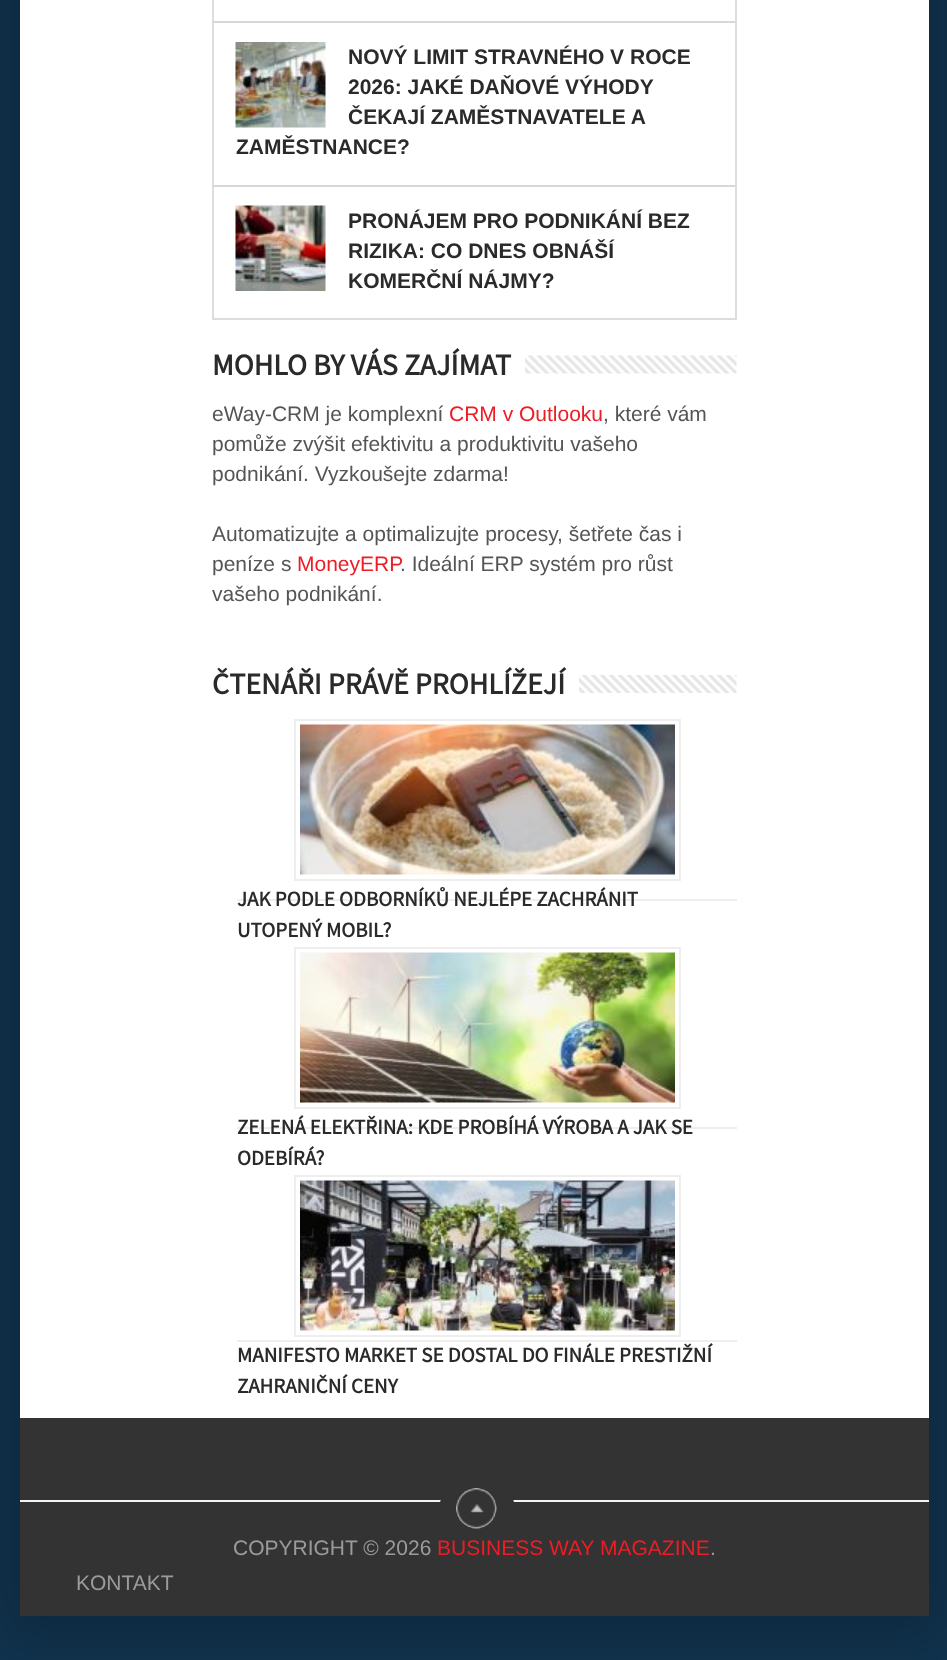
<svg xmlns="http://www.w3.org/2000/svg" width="947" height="1660">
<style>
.a{font:bold 21px Liberation Sans;fill:#2a2a2a}
.b{font:bold 30px Source Sans Pro;fill:#2a2a2a}
.c{font:21px Liberation Sans;fill:#555}
.d{font:21px Liberation Sans;fill:#ee1c25}
.e{font:bold 21px Source Sans Pro;fill:#2a2a2a}
.f{font:21px Liberation Sans;fill:#9b9b9b}
</style>
<rect width="100%" height="100%" fill="#11334e"/>
<path fill="#00000033" filter="blur(26px)" d="M5 -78h939v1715H5z"/>
<path fill="#fff" d="M20 0h909v1418H20z"/>
<path fill="#ddd" d="M735 0h2v320H735z"/>
<path fill="#ddd" d="M212 318h525v2H212z"/>
<path fill="#ddd" d="M212 0h2v320H212z"/>
<path fill="#d7d7d7" d="M213 21h522v2H213z"/>
<path fill="#d7d7d7" d="M213 185h522v2H213z"/>
<image href="1.png" x="235" y="42" width="91" height="86"/>
<image href="2.png" x="235" y="205" width="91" height="86"/>
<image href="3.png" x="525" y="355" width="212" height="19"/>
<image href="4.png" x="579" y="675" width="158" height="18"/>
<path fill="#eee" d="M237 899h500v2H237z"/>
<path fill="none" stroke="#eee" stroke-width="2" d="M295 720h385v160H295z"/>
<image href="5.png" x="300" y="724" width="375" height="151"/>
<path fill="#eee" d="M237 1127h500v2H237z"/>
<path fill="none" stroke="#eee" stroke-width="2" d="M295 948h385v160H295z"/>
<image href="6.png" x="300" y="952" width="375" height="151"/>
<path fill="#eee" d="M237 1340h500v2H237z"/>
<path fill="none" stroke="#eee" stroke-width="2" d="M295 1176h385v160H295z"/>
<image href="7.png" x="300" y="1180" width="375" height="151"/>
<path fill="#333" d="M20 1418h909v82H20z"/>
<path fill="#333" d="M20 1502h909v114H20z"/>
<path fill="#f3f3f3" d="M20 1500h909v2H20z"/>
<circle fill="#333" cx="477" cy="1514" r="39"/>
<image href="8.png" x="455" y="1488" width="42" height="41"/>
<text class="a" x="348" y="64">NOVÝ LIMIT STRAVNÉHO V ROCE</text>
<text class="a" x="348" y="94">2026: JAKÉ DAŇOVÉ VÝHODY</text>
<text class="a" x="348" y="124">ČEKAJÍ ZAMĚSTNAVATELE A</text>
<text class="a" x="236" y="154">ZAMĚSTNANCE?</text>
<text class="a" x="348" y="228">PRONÁJEM PRO PODNIKÁNÍ BEZ</text>
<text class="a" x="348" y="258">RIZIKA: CO DNES OBNÁŠÍ</text>
<text class="a" x="348" y="288">KOMERČNÍ NÁJMY?</text>
<text class="b" x="212" y="375">MOHLO BY VÁS ZAJÍMAT</text>
<text class="c" x="212" y="421">eWay-CRM je komplexní</text>
<text class="d" x="449" y="421">CRM v Outlooku</text>
<text class="c" x="603" y="421">, které vám</text>
<text class="c" x="212" y="451">pomůže zvýšit efektivitu a produktivitu vašeho</text>
<text class="c" x="212" y="481">podnikání. Vyzkoušejte zdarma!</text>
<text class="c" x="212" y="541">Automatizujte a optimalizujte procesy, šetřete čas i</text>
<text class="c" x="212" y="571">peníze s</text>
<text class="d" x="297" y="571">MoneyERP</text>
<text class="c" x="400" y="571">. Ideální ERP systém pro růst</text>
<text class="c" x="212" y="601">vašeho podnikání.</text>
<text class="b" x="212" y="694">ČTENÁŘI PRÁVĚ PROHLÍŽEJÍ</text>
<text class="e" x="237" y="906">JAK PODLE ODBORNÍKŮ NEJLÉPE ZACHRÁNIT</text>
<text class="e" x="237" y="937">UTOPENÝ MOBIL?</text>
<text class="e" x="237" y="1134">ZELENÁ ELEKTŘINA: KDE PROBÍHÁ VÝROBA A JAK SE</text>
<text class="e" x="237" y="1165">ODEBÍRÁ?</text>
<text class="e" x="237" y="1362">MANIFESTO MARKET SE DOSTAL DO FINÁLE PRESTIŽNÍ</text>
<text class="e" x="237" y="1393">ZAHRANIČNÍ CENY</text>
<text class="f" x="233" y="1555">COPYRIGHT © 2026</text>
<text class="d" x="437" y="1555">BUSINESS WAY MAGAZINE</text>
<text class="f" x="710" y="1555">.</text>
<text class="f" x="76" y="1590">KONTAKT</text>
</svg>
